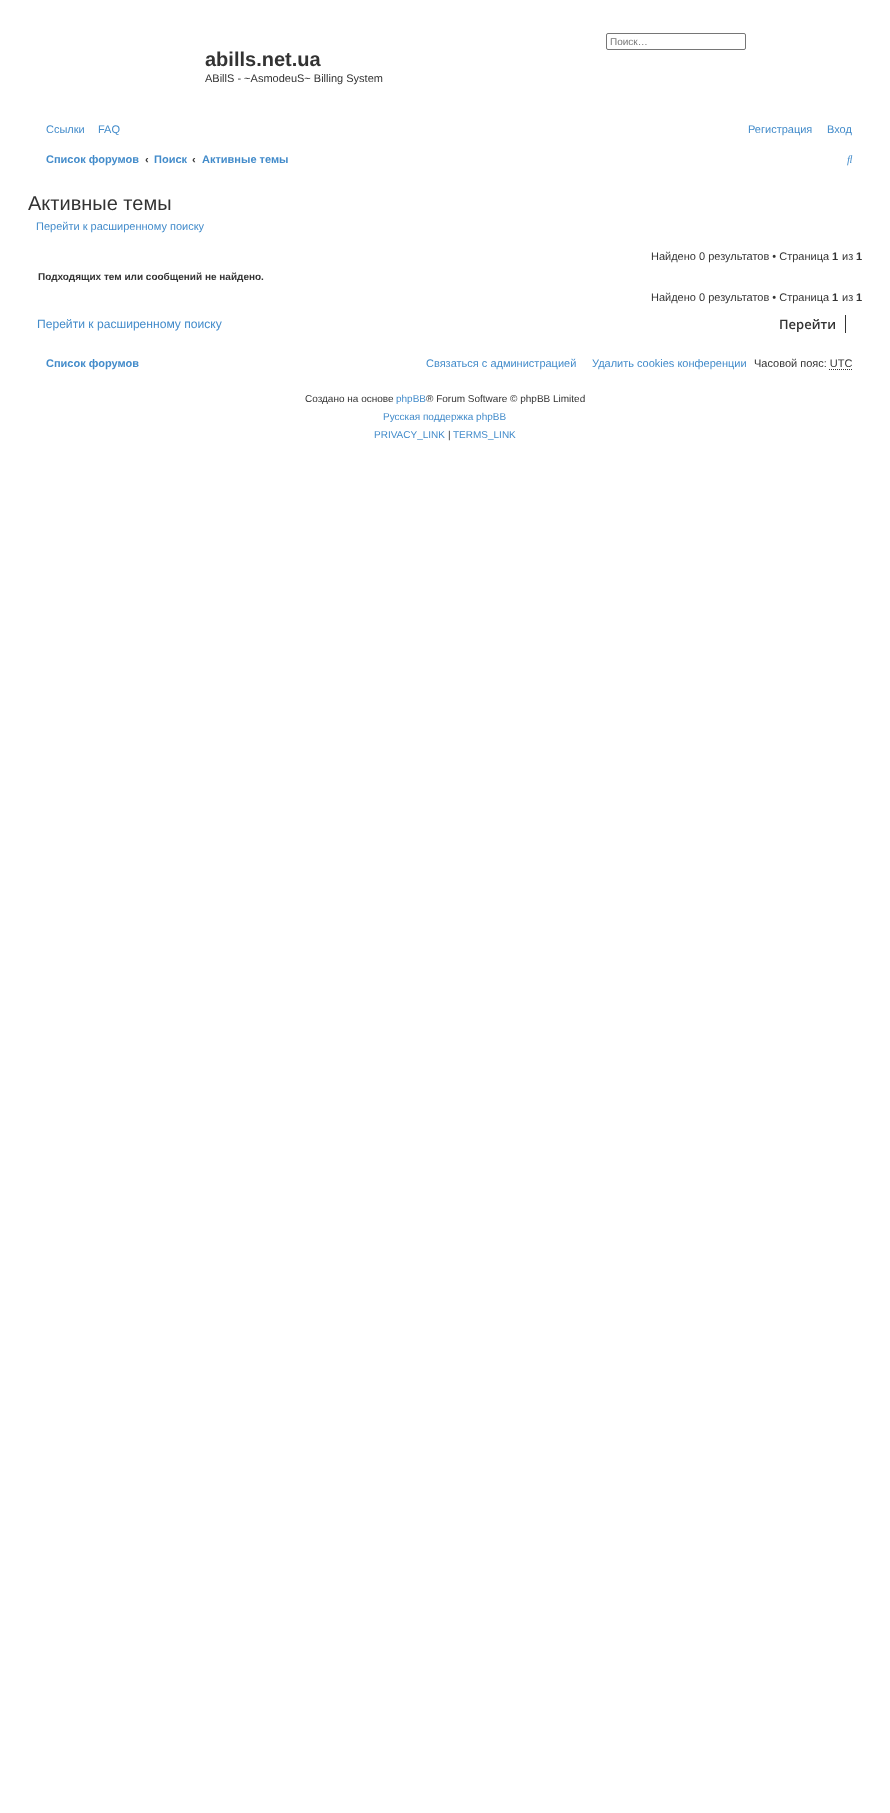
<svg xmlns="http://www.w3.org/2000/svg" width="890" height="1813">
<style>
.a{font:10px Liberation Sans;fill:#757575}
.b{font:bold 20px Liberation Sans;fill:#333}
.c{font:11px Liberation Sans;fill:#333}
.d{font:11px Liberation Sans;fill:#428bca}
.e{font:bold 11px Liberation Sans;fill:#428bca}
.f{font:bold 11px Liberation Sans;fill:#333}
.g{font:20px Liberation Sans;fill:#333}
.h{font:bold 10px Liberation Sans;fill:#333}
.i{font:12.1px Liberation Sans;fill:#428bca}
.j{font:600 13px Open Sans;fill:#333}
.k{font:10px Liberation Sans;fill:#333}
.l{font:10px Liberation Sans;fill:#428bca}
</style>
<rect width="100%" height="100%" fill="#fff"/>
<rect fill="none" stroke="#767676" x="606.5" y="33.5" width="139" height="16" rx="1.5"/>
<image href="1.png" x="847" y="155" width="6" height="11"/>
<path fill="#333" d="M845 315h1v18H845z"/>
<path fill="none" stroke="#333" stroke-dasharray="1 1" d="M829 369.5h23"/>
<text class="a" x="610" y="45">Поиск…</text>
<text class="b" x="205" y="66">abills.net.ua</text>
<text class="c" x="205" y="82">ABillS - ~AsmodeuS~ Billing System</text>
<text class="d" x="46" y="133">Ссылки</text>
<text class="d" x="98" y="133">FAQ</text>
<text class="d" x="748" y="133">Регистрация</text>
<text class="d" x="827" y="133">Вход</text>
<text class="e" x="46" y="163">Список форумов</text>
<text class="f" x="145" y="163">‹</text>
<text class="e" x="154" y="163">Поиск</text>
<text class="f" x="192" y="163">‹</text>
<text class="e" x="202" y="163">Активные темы</text>
<text class="g" x="28" y="210">Активные темы</text>
<text class="d" x="36" y="230">Перейти к расширенному поиску</text>
<text class="c" x="651" y="260">Найдено 0 результатов • Страница</text>
<text class="f" x="832" y="260">1</text>
<text class="c" x="842" y="260">из</text>
<text class="f" x="856" y="260">1</text>
<text class="h" x="38" y="280">Подходящих тем или сообщений не найдено.</text>
<text class="c" x="651" y="301">Найдено 0 результатов • Страница</text>
<text class="f" x="832" y="301">1</text>
<text class="c" x="842" y="301">из</text>
<text class="f" x="856" y="301">1</text>
<text class="i" x="37" y="328">Перейти к расширенному поиску</text>
<text class="j" x="779" y="329">Перейти</text>
<text class="e" x="46" y="367">Список форумов</text>
<text class="d" x="426" y="367">Связаться с администрацией</text>
<text class="d" x="592" y="367">Удалить cookies конференции</text>
<text class="c" x="754" y="367">Часовой пояс: UTC</text>
<text class="k" x="305" y="402">Создано на основе</text>
<text class="l" x="396" y="402">phpBB</text>
<text class="k" x="426" y="402">® Forum Software © phpBB Limited</text>
<text class="l" x="383" y="420">Русская поддержка phpBB</text>
<text class="l" x="374" y="438">PRIVACY_LINK</text>
<text class="k" x="448" y="438">|</text>
<text class="l" x="453" y="438">TERMS_LINK</text>
</svg>
